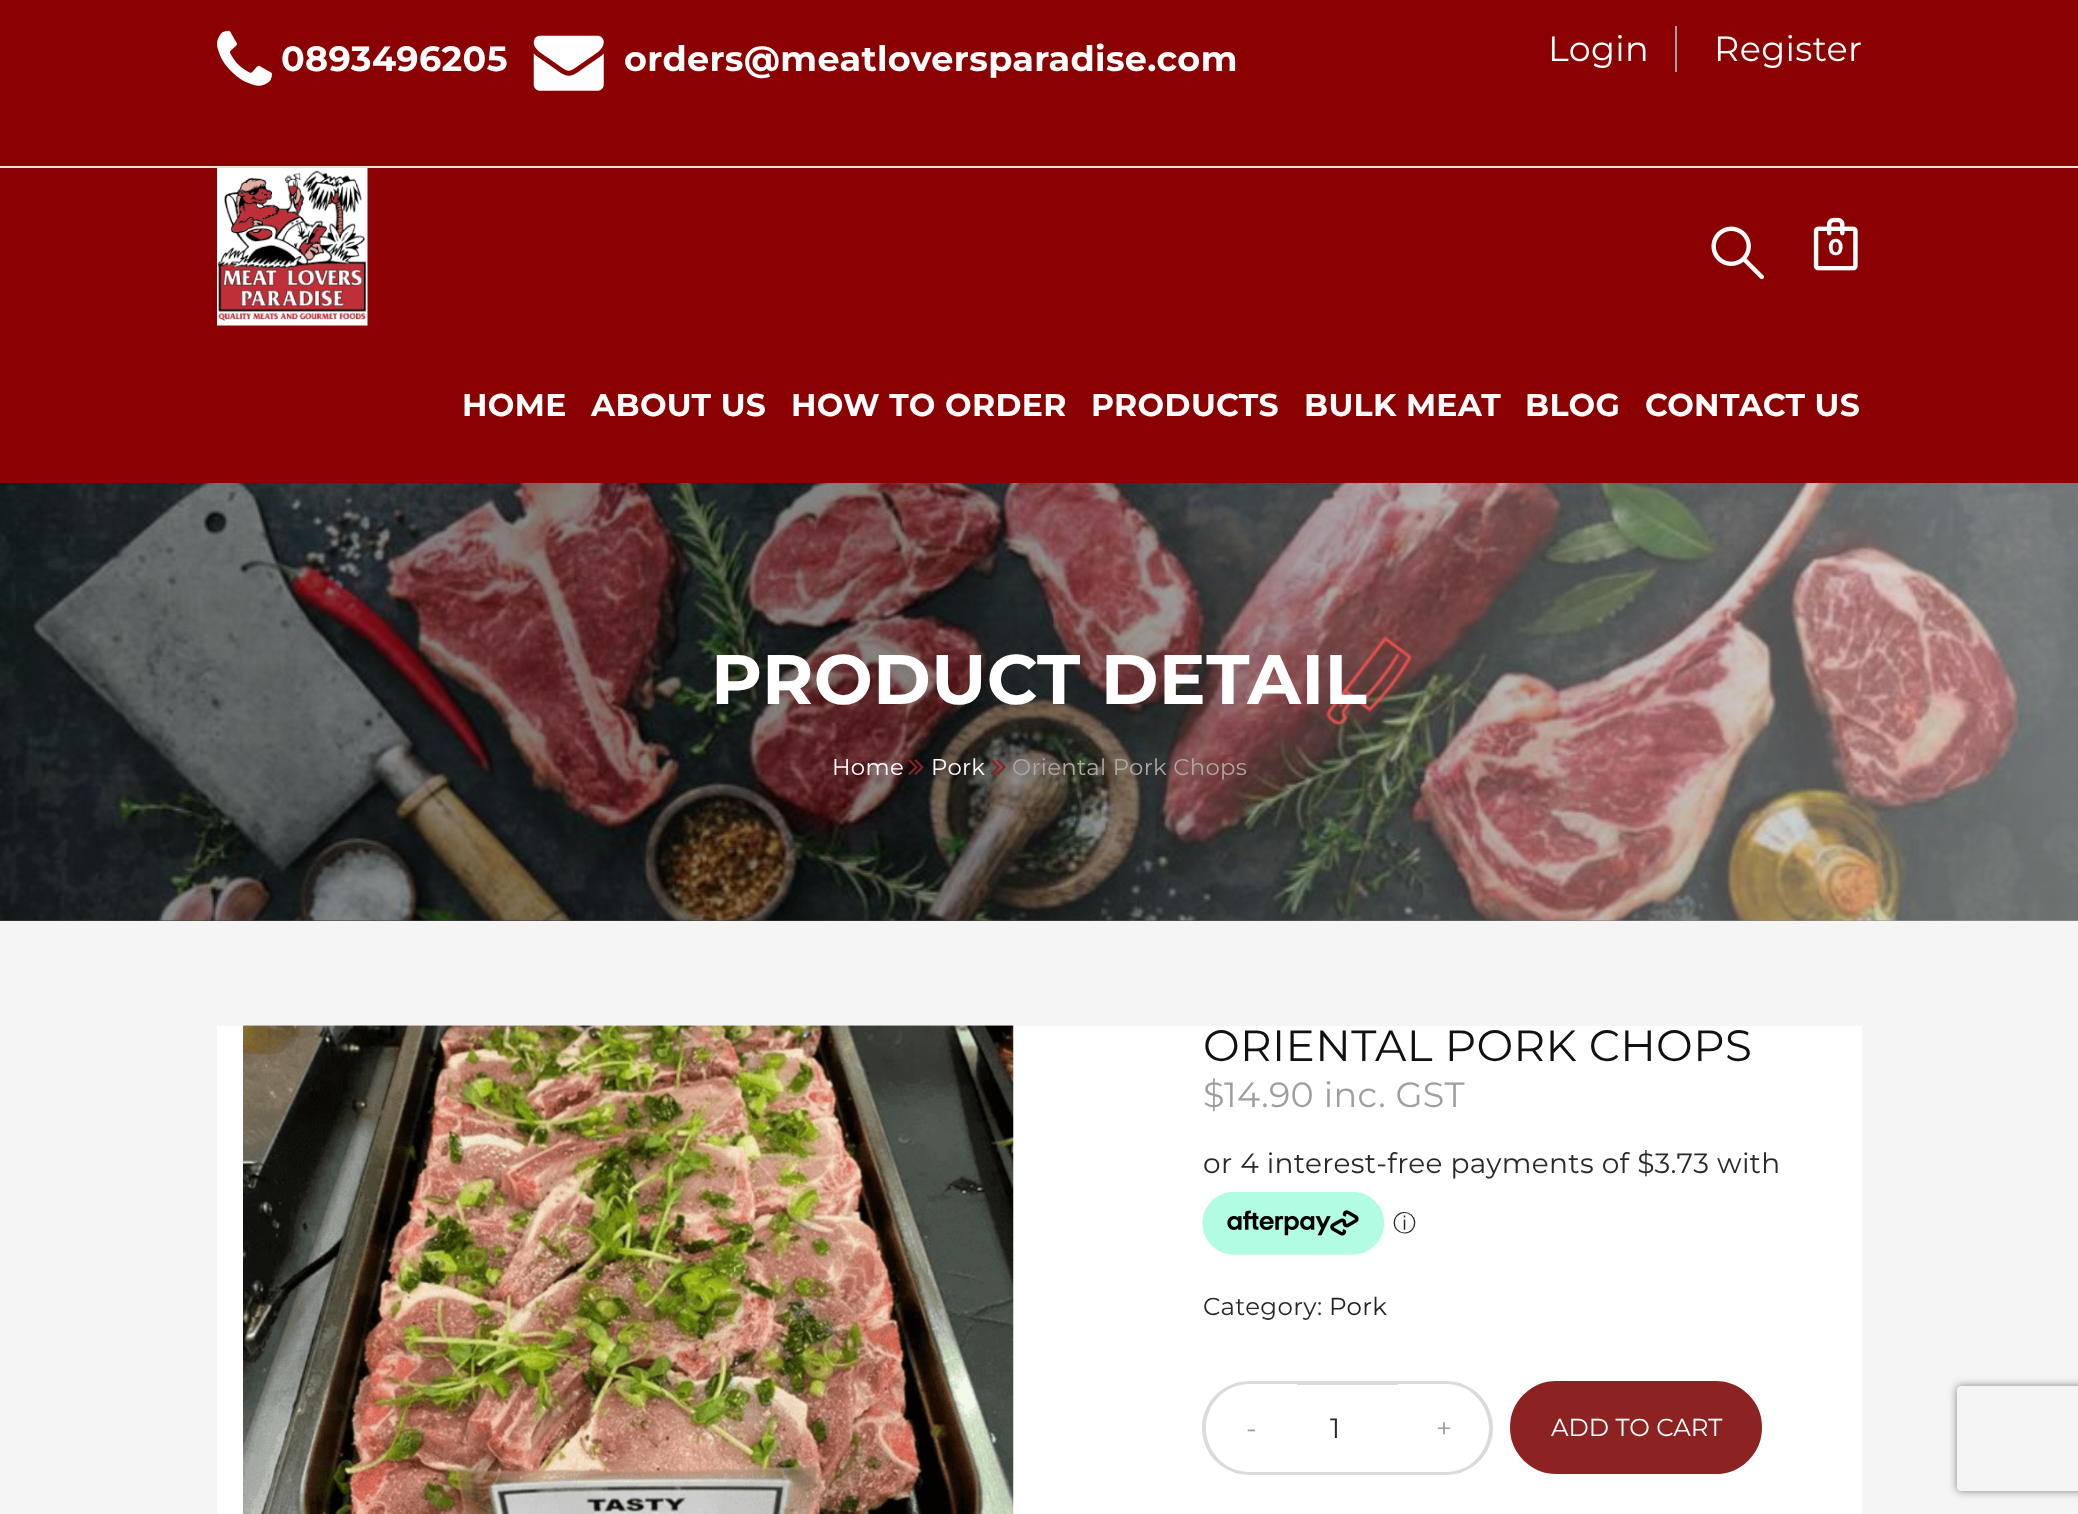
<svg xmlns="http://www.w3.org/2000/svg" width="2078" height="1514">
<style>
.a{font:bold 35px Montserrat;letter-spacing:0.35px;fill:#fff}
.b{font:35px Montserrat;letter-spacing:0.35px;fill:#fff}
.c{font:bold 22.75px Montserrat;letter-spacing:0.35px;fill:#fff}
.d{font:bold 31.5px Montserrat;letter-spacing:0.35px;fill:#fff}
.e{font:bold 70px Montserrat;letter-spacing:0.35px;fill:#fff}
.f{font:22.75px Montserrat;letter-spacing:0.35px;fill:#fff}
.g{font:22.75px Montserrat;letter-spacing:0.35px;fill:#afa6a3}
.h{font:43.75px Montserrat;letter-spacing:0.35px;fill:#111}
.i{font:35px Montserrat;letter-spacing:0.35px;fill:#9f9f9f}
.j{font:28px Montserrat;letter-spacing:0.35px;fill:#292929}
.k{font:500 23px WenQuanYi Zen Hei;fill:#292929}
.l{font:24.5px Montserrat;letter-spacing:0.35px;fill:#292929}
.m{font:24.5px Montserrat;letter-spacing:0.35px;fill:#212121}
.n{font:28px Montserrat;fill:#9f9f9f}
.o{font:28px Montserrat;fill:#292929}
.p{font:24.5px Montserrat;fill:#fff}
</style>
<defs>
<linearGradient id="g1" gradientUnits="userSpaceOnUse" x1="0" y1="702" x2="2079" y2="702"><stop offset="0.01" stop-color="#131313" stop-opacity="0.5"/><stop offset="0.43" stop-color="#090606" stop-opacity="0.5"/><stop offset="1" stop-color="#d6d4d1" stop-opacity="0.5"/></linearGradient>
<clipPath id="clip1"><path d="M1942 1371h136v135h-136zm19 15h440c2 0 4 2 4 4v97c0 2-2 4-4 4h-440c-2 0-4-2-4-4v-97c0-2 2-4 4-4z" clip-rule="evenodd"/></clipPath>
</defs>
<rect width="100%" height="100%" fill="#f5f5f5"/>
<path fill="#8b0000" d="M0 0h2078v483H0z"/>
<path fill="#e2e2e3" d="M0 166h2078v2H0z"/>
<image href="1.png" x="217" y="30" width="55" height="56"/>
<image href="2.png" x="533" y="35" width="71" height="56"/>
<path fill="#9f9f9f" d="M1675 26h2v46H1675z"/>
<image href="3.png" x="217" y="168" width="151" height="158"/>
<image href="4.png" x="1711" y="226" width="53" height="54"/>
<image href="5.png" x="1813" y="217" width="45" height="54"/>
<path fill="#787878" d="M0 920h2078v1H0z"/>
<image href="6.png" x="0" y="483" width="2078" height="438"/>
<path fill="url(#g1)" d="M0 483h2078v438H0z"/>
<image href="7.png" x="1326" y="636" width="87" height="90"/>
<image href="8.png" x="908" y="759" width="16" height="16"/>
<image href="9.png" x="990" y="759" width="16" height="16"/>
<path fill="#fff" d="M217 1026h1645v488H217z"/>
<image href="10.png" x="243" y="1025" width="771" height="489"/>
<image href="11.png" x="1202" y="1192" width="182" height="63"/>
<path fill="#dbdbdb" fill-rule="evenodd" d="M1250 1381h47v94h-47c-27 0-48-21-48-47c0-26 21-47 48-47zm0 3h47v88h-47c-25 0-44-20-44-44c0-24 19-44 44-44z"/>
<path fill="#dbdbdb" d="M1297 1381h101v4H1297z"/>
<path fill="#dbdbdb" d="M1297 1472h101v3H1297z"/>
<path fill="#dbdbdb" fill-rule="evenodd" d="M1398 1381h48c26 0 47 21 47 47c0 26-21 47-47 47h-48zm0 3h48c24 0 43 20 43 44c0 24-19 44-43 44h-48z"/>
<rect fill="#8d2222" stroke="#8d2222" stroke-width="4" x="1512" y="1383" width="248" height="89" rx="44.5"/>
<g clip-path="url(#clip1)">
<rect fill="#808080" filter="blur(4.5px)" x="1957" y="1386" width="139" height="105" rx="4"/>
</g>
<text class="a" x="281" y="71">0893496205</text>
<text class="a" x="624" y="71">orders@meatloversparadise.com</text>
<text class="b" x="1548" y="61">Login</text>
<text class="b" x="1714" y="61">Register</text>
<text class="c" x="1828" y="255">0</text>
<text class="d" x="462" y="416">HOME</text>
<text class="d" x="591" y="416">ABOUT US</text>
<text class="d" x="791" y="416">HOW TO ORDER</text>
<text class="d" x="1091" y="416">PRODUCTS</text>
<text class="d" x="1304" y="416">BULK MEAT</text>
<text class="d" x="1525" y="416">BLOG</text>
<text class="d" x="1645" y="416">CONTACT US</text>
<text class="e" x="711" y="704">PRODUCT DETAIL</text>
<text class="f" x="832" y="775">Home</text>
<text class="f" x="931" y="775">Pork</text>
<text class="g" x="1012" y="775">Oriental Pork Chops</text>
<text class="h" x="1203" y="1061">ORIENTAL PORK CHOPS</text>
<text class="i" x="1203" y="1107">$</text>
<text class="i" x="1224" y="1107">14.90 inc. GST</text>
<text class="j" x="1203" y="1173">or 4 interest-free payments of $3.73 with</text>
<text class="k" x="1393" y="1231">ⓘ</text>
<text class="l" x="1203" y="1315">Category:</text>
<text class="m" x="1329" y="1315">Pork</text>
<text class="n" x="1246" y="1438">-</text>
<text class="o" x="1330" y="1438">1</text>
<text class="n" x="1436" y="1438">+</text>
<text class="p" x="1551" y="1436">ADD TO CART</text>
</svg>
